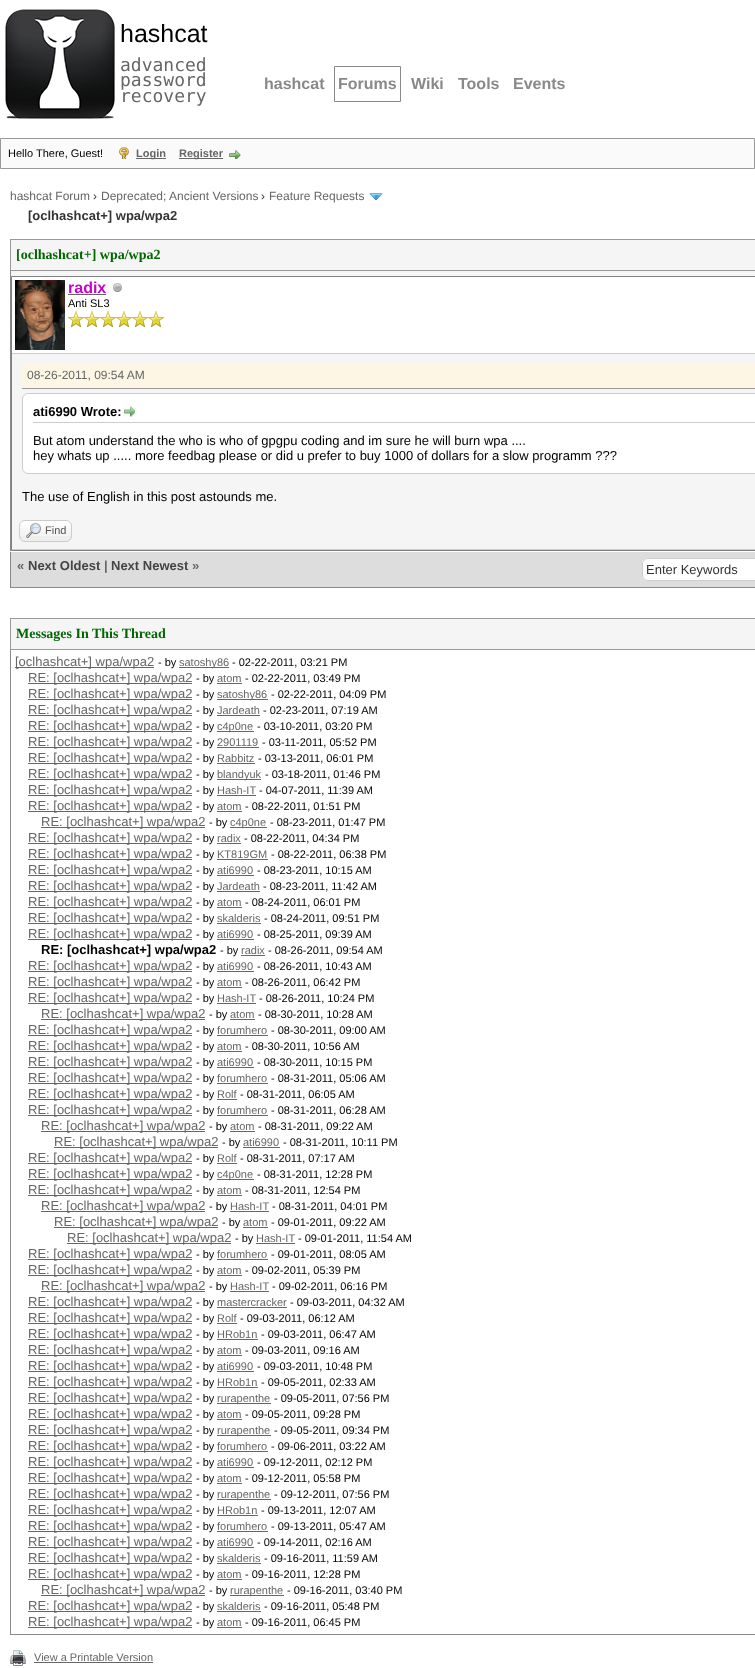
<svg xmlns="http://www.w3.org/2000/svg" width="755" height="1668">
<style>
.a{font:25px Liberation Sans;fill:#000}
.b{font:18px DejaVu Sans Mono;fill:#666}
.c{font:bold 16px Liberation Sans;fill:#898989}
.d{font:11px Liberation Sans;fill:#000}
.e{font:bold 11px Liberation Sans;fill:#666}
.f{font:12px Liberation Sans;fill:#666}
.g{font:12px Liberation Sans;fill:#333}
.h{font:bold 13px Liberation Sans;fill:#333}
.i{font:bold 14px Liberation Serif;fill:#060}
.j{font:bold 16px Liberation Sans;fill:#c0c}
.k{font:bold 13px Liberation Sans;fill:#000}
.l{font:13px Liberation Sans;fill:#000}
.m{font:11px Liberation Sans;fill:#555}
.n{font:bold 13px Liberation Sans;fill:#666}
.o{font:bold 13px Liberation Sans;fill:#444}
.p{font:13px Liberation Sans;fill:#333}
.q{font:13px Liberation Sans;fill:#666}
.r{font:11px Liberation Sans;fill:#666}
</style>
<rect width="100%" height="100%" fill="#fff"/>
<image href="1.png" x="5" y="9" width="110" height="110"/>
<path fill="none" stroke="#898989" d="M334.5 66.5h66v35H334.5z"/>
<path fill="#fafafa" stroke="#999" d="M0.5 138.5h754v30H0.5z"/>
<image href="2.png" x="119" y="147" width="10" height="12"/>
<path fill="#666" d="M136 158h30v1H136z"/>
<path fill="#666" d="M179 158h44v1H179z"/>
<image href="3.png" x="229" y="150" width="12" height="9"/>
<image href="4.png" x="369" y="193" width="14" height="7"/>
<path fill="#f5f5f5" d="M11 240h744v309H11z"/>
<path fill="#898989" d="M10 587h745v1H10z"/>
<path fill="#898989" d="M10 271h1v317H10z"/>
<path fill="#999" d="M10 239h745v1H10z"/>
<path fill="#999" d="M10 270h745v1H10z"/>
<path fill="#999" d="M10 239h1v32H10z"/>
<path fill="none" stroke="#808080" d="M11.5 276.5h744v274H11.5z"/>
<path fill="#fff" d="M12 277h743v76H12z"/>
<path fill="#ccc" d="M12 353h743v1H12z"/>
<image href="5.png" x="15" y="280" width="50" height="70"/>
<path fill="#666" d="M68 294h38v1H68z"/>
<image href="6.png" x="113" y="283" width="9" height="9"/>
<image href="7.png" x="68" y="311" width="16" height="16"/>
<image href="7.png" x="84" y="311" width="16" height="16"/>
<image href="7.png" x="100" y="311" width="16" height="16"/>
<image href="7.png" x="116" y="311" width="16" height="16"/>
<image href="7.png" x="132" y="311" width="16" height="16"/>
<image href="7.png" x="148" y="311" width="16" height="16"/>
<path fill="#fef6e4" d="M22 363h733v25H22z"/>
<path fill="#989898" d="M22 388h733v1H22z"/>
<path fill="#fff" d="M28 393h727v81h-727c-3.5 0-6-2.5-6-6v-69c0-3.5 2.5-6 6-6z"/>
<rect fill="none" stroke="#ccc" x="22.5" y="393.5" width="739" height="80" rx="5.5"/>
<path fill="#ccc" d="M33 422h722v1H33z"/>
<image href="8.png" x="124" y="406" width="11" height="11"/>
<path fill="#ccc" d="M12 549h743v1H12z"/>
<rect fill="#eee" x="19" y="520" width="53" height="22" rx="6"/>
<image href="9.png" x="19" y="521" width="53" height="15"/>
<rect fill="none" stroke="#ccc" x="19.5" y="520.5" width="52" height="21" rx="5.5"/>
<image href="10.png" x="26" y="523" width="15" height="15"/>
<path fill="#ddd" d="M11 552h744v35H11z"/>
<path fill="#fff" d="M10 551h1v1H10z"/>
<path fill="#fff" d="M648 558h107v23h-107c-3.5 0-6-2.5-6-6v-11c0-3.5 2.5-6 6-6z"/>
<rect fill="none" stroke="#ccc" x="642.5" y="558.5" width="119" height="22" rx="5.5"/>
<path fill="#f5f5f5" d="M11 619h744v30H11z"/>
<path fill="#898989" d="M10 1634h745v1H10z"/>
<path fill="#898989" d="M10 650h1v985H10z"/>
<path fill="#999" d="M10 618h745v1H10z"/>
<path fill="#999" d="M10 649h745v1H10z"/>
<path fill="#999" d="M10 618h1v32H10z"/>
<path fill="#666" d="M15 667h139v1H15z"/>
<path fill="#666" d="M179 667h50v1H179z"/>
<path fill="#666" d="M28 683h164v1H28z"/>
<path fill="#666" d="M217 683h25v1H217z"/>
<path fill="#666" d="M28 699h164v1H28z"/>
<path fill="#666" d="M217 699h51v1H217z"/>
<path fill="#666" d="M28 715h164v1H28z"/>
<path fill="#666" d="M217 715h43v1H217z"/>
<path fill="#666" d="M28 731h164v1H28z"/>
<path fill="#666" d="M217 731h37v1H217z"/>
<path fill="#666" d="M28 747h164v1H28z"/>
<path fill="#666" d="M217 747h42v1H217z"/>
<path fill="#666" d="M28 763h164v1H28z"/>
<path fill="#666" d="M217 763h38v1H217z"/>
<path fill="#666" d="M28 779h164v1H28z"/>
<path fill="#666" d="M217 779h44v1H217z"/>
<path fill="#666" d="M28 795h164v1H28z"/>
<path fill="#666" d="M217 795h39v1H217z"/>
<path fill="#666" d="M28 811h164v1H28z"/>
<path fill="#666" d="M217 811h25v1H217z"/>
<path fill="#666" d="M41 827h164v1H41z"/>
<path fill="#666" d="M230 827h37v1H230z"/>
<path fill="#666" d="M28 843h164v1H28z"/>
<path fill="#666" d="M217 843h24v1H217z"/>
<path fill="#666" d="M28 859h164v1H28z"/>
<path fill="#666" d="M217 859h51v1H217z"/>
<path fill="#666" d="M28 875h164v1H28z"/>
<path fill="#666" d="M217 875h37v1H217z"/>
<path fill="#666" d="M28 891h164v1H28z"/>
<path fill="#666" d="M217 891h43v1H217z"/>
<path fill="#666" d="M28 907h164v1H28z"/>
<path fill="#666" d="M217 907h25v1H217z"/>
<path fill="#666" d="M28 923h164v1H28z"/>
<path fill="#666" d="M217 923h44v1H217z"/>
<path fill="#666" d="M28 939h164v1H28z"/>
<path fill="#666" d="M217 939h37v1H217z"/>
<path fill="#666" d="M241 955h24v1H241z"/>
<path fill="#666" d="M28 971h164v1H28z"/>
<path fill="#666" d="M217 971h37v1H217z"/>
<path fill="#666" d="M28 987h164v1H28z"/>
<path fill="#666" d="M217 987h25v1H217z"/>
<path fill="#666" d="M28 1003h164v1H28z"/>
<path fill="#666" d="M217 1003h39v1H217z"/>
<path fill="#666" d="M41 1019h164v1H41z"/>
<path fill="#666" d="M230 1019h25v1H230z"/>
<path fill="#666" d="M28 1035h164v1H28z"/>
<path fill="#666" d="M217 1035h51v1H217z"/>
<path fill="#666" d="M28 1051h164v1H28z"/>
<path fill="#666" d="M217 1051h25v1H217z"/>
<path fill="#666" d="M28 1067h164v1H28z"/>
<path fill="#666" d="M217 1067h37v1H217z"/>
<path fill="#666" d="M28 1083h164v1H28z"/>
<path fill="#666" d="M217 1083h51v1H217z"/>
<path fill="#666" d="M28 1099h164v1H28z"/>
<path fill="#666" d="M217 1099h20v1H217z"/>
<path fill="#666" d="M28 1115h164v1H28z"/>
<path fill="#666" d="M217 1115h51v1H217z"/>
<path fill="#666" d="M41 1131h164v1H41z"/>
<path fill="#666" d="M230 1131h25v1H230z"/>
<path fill="#666" d="M54 1147h164v1H54z"/>
<path fill="#666" d="M243 1147h37v1H243z"/>
<path fill="#666" d="M28 1163h164v1H28z"/>
<path fill="#666" d="M217 1163h20v1H217z"/>
<path fill="#666" d="M28 1179h164v1H28z"/>
<path fill="#666" d="M217 1179h37v1H217z"/>
<path fill="#666" d="M28 1195h164v1H28z"/>
<path fill="#666" d="M217 1195h25v1H217z"/>
<path fill="#666" d="M41 1211h164v1H41z"/>
<path fill="#666" d="M230 1211h39v1H230z"/>
<path fill="#666" d="M54 1227h164v1H54z"/>
<path fill="#666" d="M243 1227h25v1H243z"/>
<path fill="#666" d="M67 1243h164v1H67z"/>
<path fill="#666" d="M256 1243h39v1H256z"/>
<path fill="#666" d="M28 1259h164v1H28z"/>
<path fill="#666" d="M217 1259h51v1H217z"/>
<path fill="#666" d="M28 1275h164v1H28z"/>
<path fill="#666" d="M217 1275h25v1H217z"/>
<path fill="#666" d="M41 1291h164v1H41z"/>
<path fill="#666" d="M230 1291h39v1H230z"/>
<path fill="#666" d="M28 1307h164v1H28z"/>
<path fill="#666" d="M217 1307h70v1H217z"/>
<path fill="#666" d="M28 1323h164v1H28z"/>
<path fill="#666" d="M217 1323h20v1H217z"/>
<path fill="#666" d="M28 1339h164v1H28z"/>
<path fill="#666" d="M217 1339h41v1H217z"/>
<path fill="#666" d="M28 1355h164v1H28z"/>
<path fill="#666" d="M217 1355h25v1H217z"/>
<path fill="#666" d="M28 1371h164v1H28z"/>
<path fill="#666" d="M217 1371h37v1H217z"/>
<path fill="#666" d="M28 1387h164v1H28z"/>
<path fill="#666" d="M217 1387h41v1H217z"/>
<path fill="#666" d="M28 1403h164v1H28z"/>
<path fill="#666" d="M217 1403h54v1H217z"/>
<path fill="#666" d="M28 1419h164v1H28z"/>
<path fill="#666" d="M217 1419h25v1H217z"/>
<path fill="#666" d="M28 1435h164v1H28z"/>
<path fill="#666" d="M217 1435h54v1H217z"/>
<path fill="#666" d="M28 1451h164v1H28z"/>
<path fill="#666" d="M217 1451h51v1H217z"/>
<path fill="#666" d="M28 1467h164v1H28z"/>
<path fill="#666" d="M217 1467h37v1H217z"/>
<path fill="#666" d="M28 1483h164v1H28z"/>
<path fill="#666" d="M217 1483h25v1H217z"/>
<path fill="#666" d="M28 1499h164v1H28z"/>
<path fill="#666" d="M217 1499h54v1H217z"/>
<path fill="#666" d="M28 1515h164v1H28z"/>
<path fill="#666" d="M217 1515h41v1H217z"/>
<path fill="#666" d="M28 1531h164v1H28z"/>
<path fill="#666" d="M217 1531h51v1H217z"/>
<path fill="#666" d="M28 1547h164v1H28z"/>
<path fill="#666" d="M217 1547h37v1H217z"/>
<path fill="#666" d="M28 1563h164v1H28z"/>
<path fill="#666" d="M217 1563h44v1H217z"/>
<path fill="#666" d="M28 1579h164v1H28z"/>
<path fill="#666" d="M217 1579h25v1H217z"/>
<path fill="#666" d="M41 1595h164v1H41z"/>
<path fill="#666" d="M230 1595h54v1H230z"/>
<path fill="#666" d="M28 1611h164v1H28z"/>
<path fill="#666" d="M217 1611h44v1H217z"/>
<path fill="#666" d="M28 1627h164v1H28z"/>
<path fill="#666" d="M217 1627h25v1H217z"/>
<image href="11.png" x="10" y="1650" width="16" height="16"/>
<path fill="#666" d="M34 1662h119v1H34z"/>
<text class="a" x="120" y="42">hashcat</text>
<text class="b" x="120" y="71">advanced</text>
<text class="b" x="120" y="86">password</text>
<text class="b" x="120" y="102">recovery</text>
<text class="c" x="264" y="89">hashcat</text>
<text class="c" x="338" y="89">Forums</text>
<text class="c" x="411" y="89">Wiki</text>
<text class="c" x="458" y="89">Tools</text>
<text class="c" x="513" y="89">Events</text>
<text class="d" x="8" y="157">Hello There, Guest!</text>
<text class="e" x="136" y="157">Login</text>
<text class="e" x="179" y="157">Register</text>
<text class="f" x="10" y="200">hashcat Forum</text>
<text class="g" x="93" y="200">›</text>
<text class="f" x="101" y="200">Deprecated; Ancient Versions</text>
<text class="g" x="261" y="200">›</text>
<text class="f" x="269" y="200">Feature Requests</text>
<text class="h" x="28" y="220">[oclhashcat+] wpa/wpa2</text>
<text class="i" x="16" y="259">[oclhashcat+] wpa/wpa2</text>
<text class="j" x="68" y="293">radix</text>
<text class="d" x="68" y="307">Anti SL3</text>
<text class="f" x="27" y="379">08-26-2011, 09:54 AM</text>
<text class="k" x="33" y="416">ati6990 Wrote:</text>
<text class="l" x="33" y="445">But atom understand the who is who of gpgpu coding and im sure he will burn wpa ....</text>
<text class="l" x="33" y="460">hey whats up ..... more feedbag please or did u prefer to buy 1000 of dollars for a slow programm ???</text>
<text class="l" x="22" y="501">The use of English in this post astounds me.</text>
<text class="m" x="45" y="534">Find</text>
<text class="n" x="17" y="570">«</text>
<text class="o" x="28" y="570">Next Oldest</text>
<text class="n" x="104" y="570">|</text>
<text class="o" x="111" y="570">Next Newest</text>
<text class="n" x="192" y="570">»</text>
<text class="p" x="646" y="574">Enter Keywords</text>
<text class="i" x="16" y="638">Messages In This Thread</text>
<text class="q" x="15" y="666">[oclhashcat+] wpa/wpa2</text>
<text class="d" x="158" y="666">- by</text>
<text class="r" x="179" y="666">satoshy86</text>
<text class="d" x="232" y="666">- 02-22-2011, 03:21 PM</text>
<text class="q" x="28" y="682">RE: [oclhashcat+] wpa/wpa2</text>
<text class="d" x="196" y="682">- by</text>
<text class="r" x="217" y="682">atom</text>
<text class="d" x="245" y="682">- 02-22-2011, 03:49 PM</text>
<text class="q" x="28" y="698">RE: [oclhashcat+] wpa/wpa2</text>
<text class="d" x="196" y="698">- by</text>
<text class="r" x="217" y="698">satoshy86</text>
<text class="d" x="271" y="698">- 02-22-2011, 04:09 PM</text>
<text class="q" x="28" y="714">RE: [oclhashcat+] wpa/wpa2</text>
<text class="d" x="196" y="714">- by</text>
<text class="r" x="217" y="714">Jardeath</text>
<text class="d" x="263" y="714">- 02-23-2011, 07:19 AM</text>
<text class="q" x="28" y="730">RE: [oclhashcat+] wpa/wpa2</text>
<text class="d" x="196" y="730">- by</text>
<text class="r" x="217" y="730">c4p0ne</text>
<text class="d" x="257" y="730">- 03-10-2011, 03:20 PM</text>
<text class="q" x="28" y="746">RE: [oclhashcat+] wpa/wpa2</text>
<text class="d" x="196" y="746">- by</text>
<text class="r" x="217" y="746">2901119</text>
<text class="d" x="262" y="746">- 03-11-2011, 05:52 PM</text>
<text class="q" x="28" y="762">RE: [oclhashcat+] wpa/wpa2</text>
<text class="d" x="196" y="762">- by</text>
<text class="r" x="217" y="762">Rabbitz</text>
<text class="d" x="258" y="762">- 03-13-2011, 06:01 PM</text>
<text class="q" x="28" y="778">RE: [oclhashcat+] wpa/wpa2</text>
<text class="d" x="196" y="778">- by</text>
<text class="r" x="217" y="778">blandyuk</text>
<text class="d" x="265" y="778">- 03-18-2011, 01:46 PM</text>
<text class="q" x="28" y="794">RE: [oclhashcat+] wpa/wpa2</text>
<text class="d" x="196" y="794">- by</text>
<text class="r" x="217" y="794">Hash-IT</text>
<text class="d" x="259" y="794">- 04-07-2011, 11:39 AM</text>
<text class="q" x="28" y="810">RE: [oclhashcat+] wpa/wpa2</text>
<text class="d" x="196" y="810">- by</text>
<text class="r" x="217" y="810">atom</text>
<text class="d" x="245" y="810">- 08-22-2011, 01:51 PM</text>
<text class="q" x="41" y="826">RE: [oclhashcat+] wpa/wpa2</text>
<text class="d" x="209" y="826">- by</text>
<text class="r" x="230" y="826">c4p0ne</text>
<text class="d" x="270" y="826">- 08-23-2011, 01:47 PM</text>
<text class="q" x="28" y="842">RE: [oclhashcat+] wpa/wpa2</text>
<text class="d" x="196" y="842">- by</text>
<text class="r" x="217" y="842">radix</text>
<text class="d" x="244" y="842">- 08-22-2011, 04:34 PM</text>
<text class="q" x="28" y="858">RE: [oclhashcat+] wpa/wpa2</text>
<text class="d" x="196" y="858">- by</text>
<text class="r" x="217" y="858">KT819GM</text>
<text class="d" x="271" y="858">- 08-22-2011, 06:38 PM</text>
<text class="q" x="28" y="874">RE: [oclhashcat+] wpa/wpa2</text>
<text class="d" x="196" y="874">- by</text>
<text class="r" x="217" y="874">ati6990</text>
<text class="d" x="257" y="874">- 08-23-2011, 10:15 AM</text>
<text class="q" x="28" y="890">RE: [oclhashcat+] wpa/wpa2</text>
<text class="d" x="196" y="890">- by</text>
<text class="r" x="217" y="890">Jardeath</text>
<text class="d" x="263" y="890">- 08-23-2011, 11:42 AM</text>
<text class="q" x="28" y="906">RE: [oclhashcat+] wpa/wpa2</text>
<text class="d" x="196" y="906">- by</text>
<text class="r" x="217" y="906">atom</text>
<text class="d" x="245" y="906">- 08-24-2011, 06:01 PM</text>
<text class="q" x="28" y="922">RE: [oclhashcat+] wpa/wpa2</text>
<text class="d" x="196" y="922">- by</text>
<text class="r" x="217" y="922">skalderis</text>
<text class="d" x="264" y="922">- 08-24-2011, 09:51 PM</text>
<text class="q" x="28" y="938">RE: [oclhashcat+] wpa/wpa2</text>
<text class="d" x="196" y="938">- by</text>
<text class="r" x="217" y="938">ati6990</text>
<text class="d" x="257" y="938">- 08-25-2011, 09:39 AM</text>
<text class="k" x="41" y="954">RE: [oclhashcat+] wpa/wpa2</text>
<text class="d" x="220" y="954">- by</text>
<text class="r" x="241" y="954">radix</text>
<text class="d" x="268" y="954">- 08-26-2011, 09:54 AM</text>
<text class="q" x="28" y="970">RE: [oclhashcat+] wpa/wpa2</text>
<text class="d" x="196" y="970">- by</text>
<text class="r" x="217" y="970">ati6990</text>
<text class="d" x="257" y="970">- 08-26-2011, 10:43 AM</text>
<text class="q" x="28" y="986">RE: [oclhashcat+] wpa/wpa2</text>
<text class="d" x="196" y="986">- by</text>
<text class="r" x="217" y="986">atom</text>
<text class="d" x="245" y="986">- 08-26-2011, 06:42 PM</text>
<text class="q" x="28" y="1002">RE: [oclhashcat+] wpa/wpa2</text>
<text class="d" x="196" y="1002">- by</text>
<text class="r" x="217" y="1002">Hash-IT</text>
<text class="d" x="259" y="1002">- 08-26-2011, 10:24 PM</text>
<text class="q" x="41" y="1018">RE: [oclhashcat+] wpa/wpa2</text>
<text class="d" x="209" y="1018">- by</text>
<text class="r" x="230" y="1018">atom</text>
<text class="d" x="258" y="1018">- 08-30-2011, 10:28 AM</text>
<text class="q" x="28" y="1034">RE: [oclhashcat+] wpa/wpa2</text>
<text class="d" x="196" y="1034">- by</text>
<text class="r" x="217" y="1034">forumhero</text>
<text class="d" x="271" y="1034">- 08-30-2011, 09:00 AM</text>
<text class="q" x="28" y="1050">RE: [oclhashcat+] wpa/wpa2</text>
<text class="d" x="196" y="1050">- by</text>
<text class="r" x="217" y="1050">atom</text>
<text class="d" x="245" y="1050">- 08-30-2011, 10:56 AM</text>
<text class="q" x="28" y="1066">RE: [oclhashcat+] wpa/wpa2</text>
<text class="d" x="196" y="1066">- by</text>
<text class="r" x="217" y="1066">ati6990</text>
<text class="d" x="257" y="1066">- 08-30-2011, 10:15 PM</text>
<text class="q" x="28" y="1082">RE: [oclhashcat+] wpa/wpa2</text>
<text class="d" x="196" y="1082">- by</text>
<text class="r" x="217" y="1082">forumhero</text>
<text class="d" x="271" y="1082">- 08-31-2011, 05:06 AM</text>
<text class="q" x="28" y="1098">RE: [oclhashcat+] wpa/wpa2</text>
<text class="d" x="196" y="1098">- by</text>
<text class="r" x="217" y="1098">Rolf</text>
<text class="d" x="240" y="1098">- 08-31-2011, 06:05 AM</text>
<text class="q" x="28" y="1114">RE: [oclhashcat+] wpa/wpa2</text>
<text class="d" x="196" y="1114">- by</text>
<text class="r" x="217" y="1114">forumhero</text>
<text class="d" x="271" y="1114">- 08-31-2011, 06:28 AM</text>
<text class="q" x="41" y="1130">RE: [oclhashcat+] wpa/wpa2</text>
<text class="d" x="209" y="1130">- by</text>
<text class="r" x="230" y="1130">atom</text>
<text class="d" x="258" y="1130">- 08-31-2011, 09:22 AM</text>
<text class="q" x="54" y="1146">RE: [oclhashcat+] wpa/wpa2</text>
<text class="d" x="222" y="1146">- by</text>
<text class="r" x="243" y="1146">ati6990</text>
<text class="d" x="283" y="1146">- 08-31-2011, 10:11 PM</text>
<text class="q" x="28" y="1162">RE: [oclhashcat+] wpa/wpa2</text>
<text class="d" x="196" y="1162">- by</text>
<text class="r" x="217" y="1162">Rolf</text>
<text class="d" x="240" y="1162">- 08-31-2011, 07:17 AM</text>
<text class="q" x="28" y="1178">RE: [oclhashcat+] wpa/wpa2</text>
<text class="d" x="196" y="1178">- by</text>
<text class="r" x="217" y="1178">c4p0ne</text>
<text class="d" x="257" y="1178">- 08-31-2011, 12:28 PM</text>
<text class="q" x="28" y="1194">RE: [oclhashcat+] wpa/wpa2</text>
<text class="d" x="196" y="1194">- by</text>
<text class="r" x="217" y="1194">atom</text>
<text class="d" x="245" y="1194">- 08-31-2011, 12:54 PM</text>
<text class="q" x="41" y="1210">RE: [oclhashcat+] wpa/wpa2</text>
<text class="d" x="209" y="1210">- by</text>
<text class="r" x="230" y="1210">Hash-IT</text>
<text class="d" x="272" y="1210">- 08-31-2011, 04:01 PM</text>
<text class="q" x="54" y="1226">RE: [oclhashcat+] wpa/wpa2</text>
<text class="d" x="222" y="1226">- by</text>
<text class="r" x="243" y="1226">atom</text>
<text class="d" x="271" y="1226">- 09-01-2011, 09:22 AM</text>
<text class="q" x="67" y="1242">RE: [oclhashcat+] wpa/wpa2</text>
<text class="d" x="235" y="1242">- by</text>
<text class="r" x="256" y="1242">Hash-IT</text>
<text class="d" x="298" y="1242">- 09-01-2011, 11:54 AM</text>
<text class="q" x="28" y="1258">RE: [oclhashcat+] wpa/wpa2</text>
<text class="d" x="196" y="1258">- by</text>
<text class="r" x="217" y="1258">forumhero</text>
<text class="d" x="271" y="1258">- 09-01-2011, 08:05 AM</text>
<text class="q" x="28" y="1274">RE: [oclhashcat+] wpa/wpa2</text>
<text class="d" x="196" y="1274">- by</text>
<text class="r" x="217" y="1274">atom</text>
<text class="d" x="245" y="1274">- 09-02-2011, 05:39 PM</text>
<text class="q" x="41" y="1290">RE: [oclhashcat+] wpa/wpa2</text>
<text class="d" x="209" y="1290">- by</text>
<text class="r" x="230" y="1290">Hash-IT</text>
<text class="d" x="272" y="1290">- 09-02-2011, 06:16 PM</text>
<text class="q" x="28" y="1306">RE: [oclhashcat+] wpa/wpa2</text>
<text class="d" x="196" y="1306">- by</text>
<text class="r" x="217" y="1306">mastercracker</text>
<text class="d" x="290" y="1306">- 09-03-2011, 04:32 AM</text>
<text class="q" x="28" y="1322">RE: [oclhashcat+] wpa/wpa2</text>
<text class="d" x="196" y="1322">- by</text>
<text class="r" x="217" y="1322">Rolf</text>
<text class="d" x="240" y="1322">- 09-03-2011, 06:12 AM</text>
<text class="q" x="28" y="1338">RE: [oclhashcat+] wpa/wpa2</text>
<text class="d" x="196" y="1338">- by</text>
<text class="r" x="217" y="1338">HRob1n</text>
<text class="d" x="261" y="1338">- 09-03-2011, 06:47 AM</text>
<text class="q" x="28" y="1354">RE: [oclhashcat+] wpa/wpa2</text>
<text class="d" x="196" y="1354">- by</text>
<text class="r" x="217" y="1354">atom</text>
<text class="d" x="245" y="1354">- 09-03-2011, 09:16 AM</text>
<text class="q" x="28" y="1370">RE: [oclhashcat+] wpa/wpa2</text>
<text class="d" x="196" y="1370">- by</text>
<text class="r" x="217" y="1370">ati6990</text>
<text class="d" x="257" y="1370">- 09-03-2011, 10:48 PM</text>
<text class="q" x="28" y="1386">RE: [oclhashcat+] wpa/wpa2</text>
<text class="d" x="196" y="1386">- by</text>
<text class="r" x="217" y="1386">HRob1n</text>
<text class="d" x="261" y="1386">- 09-05-2011, 02:33 AM</text>
<text class="q" x="28" y="1402">RE: [oclhashcat+] wpa/wpa2</text>
<text class="d" x="196" y="1402">- by</text>
<text class="r" x="217" y="1402">rurapenthe</text>
<text class="d" x="274" y="1402">- 09-05-2011, 07:56 PM</text>
<text class="q" x="28" y="1418">RE: [oclhashcat+] wpa/wpa2</text>
<text class="d" x="196" y="1418">- by</text>
<text class="r" x="217" y="1418">atom</text>
<text class="d" x="245" y="1418">- 09-05-2011, 09:28 PM</text>
<text class="q" x="28" y="1434">RE: [oclhashcat+] wpa/wpa2</text>
<text class="d" x="196" y="1434">- by</text>
<text class="r" x="217" y="1434">rurapenthe</text>
<text class="d" x="274" y="1434">- 09-05-2011, 09:34 PM</text>
<text class="q" x="28" y="1450">RE: [oclhashcat+] wpa/wpa2</text>
<text class="d" x="196" y="1450">- by</text>
<text class="r" x="217" y="1450">forumhero</text>
<text class="d" x="271" y="1450">- 09-06-2011, 03:22 AM</text>
<text class="q" x="28" y="1466">RE: [oclhashcat+] wpa/wpa2</text>
<text class="d" x="196" y="1466">- by</text>
<text class="r" x="217" y="1466">ati6990</text>
<text class="d" x="257" y="1466">- 09-12-2011, 02:12 PM</text>
<text class="q" x="28" y="1482">RE: [oclhashcat+] wpa/wpa2</text>
<text class="d" x="196" y="1482">- by</text>
<text class="r" x="217" y="1482">atom</text>
<text class="d" x="245" y="1482">- 09-12-2011, 05:58 PM</text>
<text class="q" x="28" y="1498">RE: [oclhashcat+] wpa/wpa2</text>
<text class="d" x="196" y="1498">- by</text>
<text class="r" x="217" y="1498">rurapenthe</text>
<text class="d" x="274" y="1498">- 09-12-2011, 07:56 PM</text>
<text class="q" x="28" y="1514">RE: [oclhashcat+] wpa/wpa2</text>
<text class="d" x="196" y="1514">- by</text>
<text class="r" x="217" y="1514">HRob1n</text>
<text class="d" x="261" y="1514">- 09-13-2011, 12:07 AM</text>
<text class="q" x="28" y="1530">RE: [oclhashcat+] wpa/wpa2</text>
<text class="d" x="196" y="1530">- by</text>
<text class="r" x="217" y="1530">forumhero</text>
<text class="d" x="271" y="1530">- 09-13-2011, 05:47 AM</text>
<text class="q" x="28" y="1546">RE: [oclhashcat+] wpa/wpa2</text>
<text class="d" x="196" y="1546">- by</text>
<text class="r" x="217" y="1546">ati6990</text>
<text class="d" x="257" y="1546">- 09-14-2011, 02:16 AM</text>
<text class="q" x="28" y="1562">RE: [oclhashcat+] wpa/wpa2</text>
<text class="d" x="196" y="1562">- by</text>
<text class="r" x="217" y="1562">skalderis</text>
<text class="d" x="264" y="1562">- 09-16-2011, 11:59 AM</text>
<text class="q" x="28" y="1578">RE: [oclhashcat+] wpa/wpa2</text>
<text class="d" x="196" y="1578">- by</text>
<text class="r" x="217" y="1578">atom</text>
<text class="d" x="245" y="1578">- 09-16-2011, 12:28 PM</text>
<text class="q" x="41" y="1594">RE: [oclhashcat+] wpa/wpa2</text>
<text class="d" x="209" y="1594">- by</text>
<text class="r" x="230" y="1594">rurapenthe</text>
<text class="d" x="287" y="1594">- 09-16-2011, 03:40 PM</text>
<text class="q" x="28" y="1610">RE: [oclhashcat+] wpa/wpa2</text>
<text class="d" x="196" y="1610">- by</text>
<text class="r" x="217" y="1610">skalderis</text>
<text class="d" x="264" y="1610">- 09-16-2011, 05:48 PM</text>
<text class="q" x="28" y="1626">RE: [oclhashcat+] wpa/wpa2</text>
<text class="d" x="196" y="1626">- by</text>
<text class="r" x="217" y="1626">atom</text>
<text class="d" x="245" y="1626">- 09-16-2011, 06:45 PM</text>
<text class="r" x="34" y="1661">View a Printable Version</text>
</svg>
